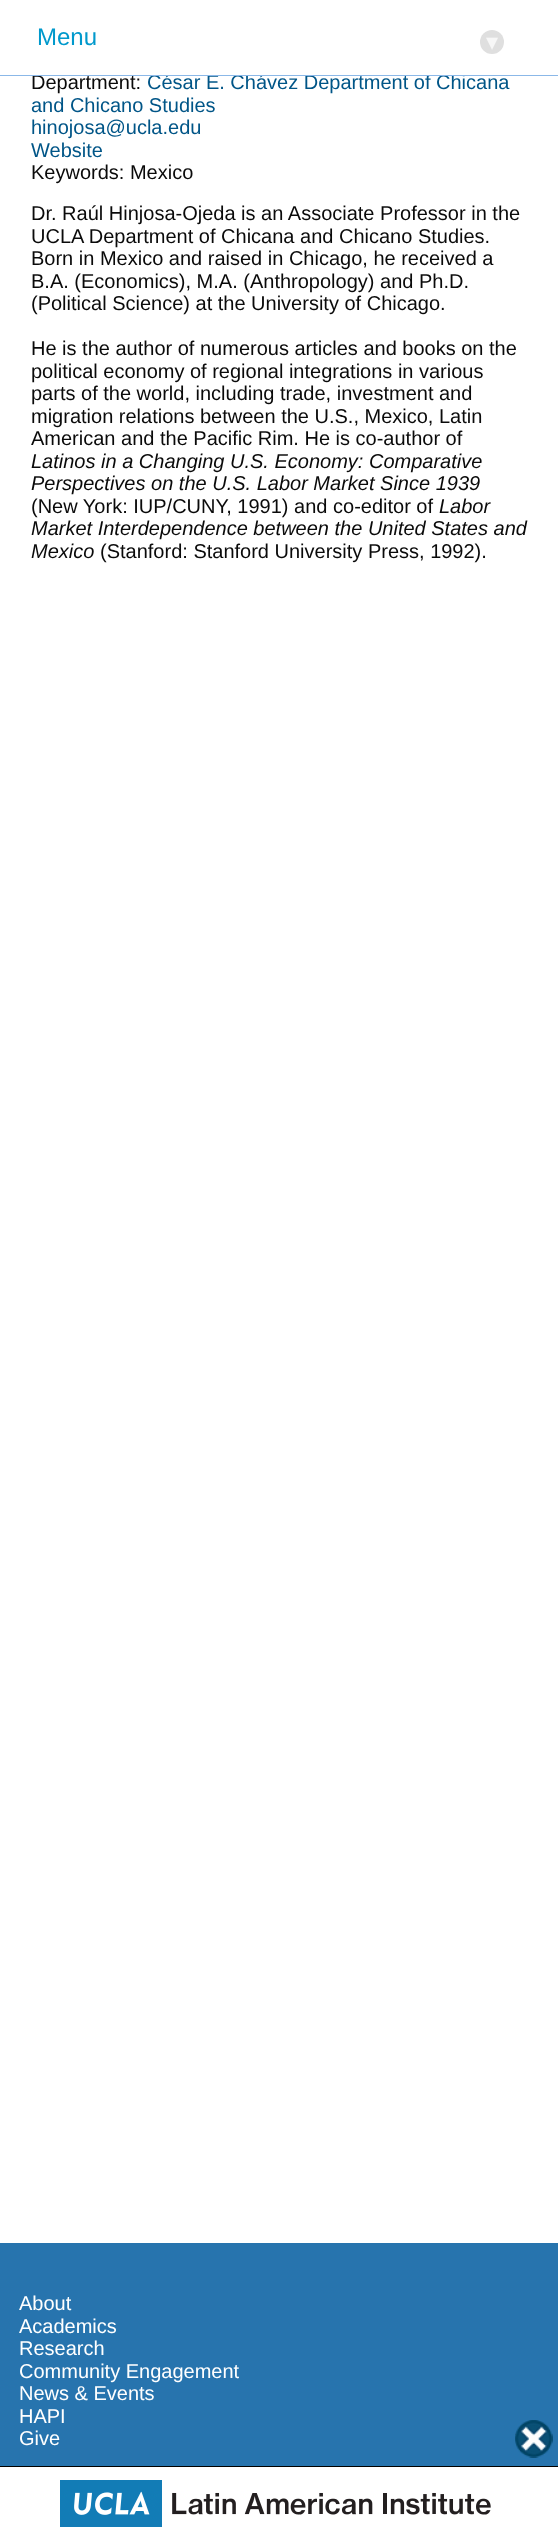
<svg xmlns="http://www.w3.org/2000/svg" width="558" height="2540">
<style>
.a{font:24px Liberation Sans;fill:#09c}
.b{font:24px DejaVu Sans;fill:#f7f7f7}
.c{font:20px Liberation Sans;fill:#0a0a0a}
.d{font:20px Liberation Sans;fill:#005587}
.e{font:italic 20px Liberation Sans;fill:#0a0a0a}
.f{font:20px Liberation Sans;fill:#fff}
</style>
<rect width="100%" height="100%" fill="#fff"/>
<circle fill="#dfdfdf" cx="492" cy="42" r="12"/>
<path fill="#2774ae" d="M0 2243h558v223H0z"/>
<path fill="#000" d="M0 2466h558v1H0z"/>
<image href="1.png" x="515" y="2420" width="38" height="38"/>
<image href="2.png" x="60" y="2480" width="431" height="47"/>
<text class="a" x="37" y="45">Menu</text>
<text class="b" x="486" y="50">▾</text>
<text class="c" x="31" y="89">Department:</text>
<text class="d" x="147" y="89">César E. Chávez Department of Chicana</text>
<path fill="#8bb8e8" d="M0 75h558v1H0z"/>
<path fill="#fff" d="M167 74h298v1H167z"/>
<text class="d" x="31" y="112">and Chicano Studies</text>
<text class="d" x="31" y="134">hinojosa@ucla.edu</text>
<text class="d" x="31" y="157">Website</text>
<text class="c" x="31" y="179">Keywords: Mexico</text>
<text class="c" x="31" y="220">Dr. Raúl Hinjosa-Ojeda is an Associate Professor in the</text>
<text class="c" x="31" y="243">UCLA Department of Chicana and Chicano Studies.</text>
<text class="c" x="31" y="265">Born in Mexico and raised in Chicago, he received a</text>
<text class="c" x="31" y="288">B.A. (Economics), M.A. (Anthropology) and Ph.D.</text>
<text class="c" x="31" y="310">(Political Science) at the University of Chicago.</text>
<text class="c" x="31" y="355">He is the author of numerous articles and books on the</text>
<text class="c" x="31" y="378">political economy of regional integrations in various</text>
<text class="c" x="31" y="400">parts of the world, including trade, investment and</text>
<text class="c" x="31" y="423">migration relations between the U.S., Mexico, Latin</text>
<text class="c" x="31" y="445">American and the Pacific Rim. He is co-author of</text>
<text class="e" x="31" y="468">Latinos in a Changing U.S. Economy: Comparative</text>
<text class="e" x="31" y="490">Perspectives on the U.S. Labor Market Since 1939</text>
<text class="c" x="31" y="513">(New York: IUP/CUNY, 1991) and co-editor of</text>
<text class="e" x="439" y="513">Labor</text>
<text class="e" x="31" y="535">Market Interdependence between the United States and</text>
<text class="e" x="31" y="558">Mexico</text>
<text class="c" x="100" y="558">(Stanford: Stanford University Press, 1992).</text>
<text class="f" x="19" y="2310">About</text>
<text class="f" x="19" y="2333">Academics</text>
<text class="f" x="19" y="2355">Research</text>
<text class="f" x="19" y="2378">Community Engagement</text>
<text class="f" x="19" y="2400">News &amp; Events</text>
<text class="f" x="19" y="2423">HAPI</text>
<text class="f" x="19" y="2445">Give</text>
</svg>
